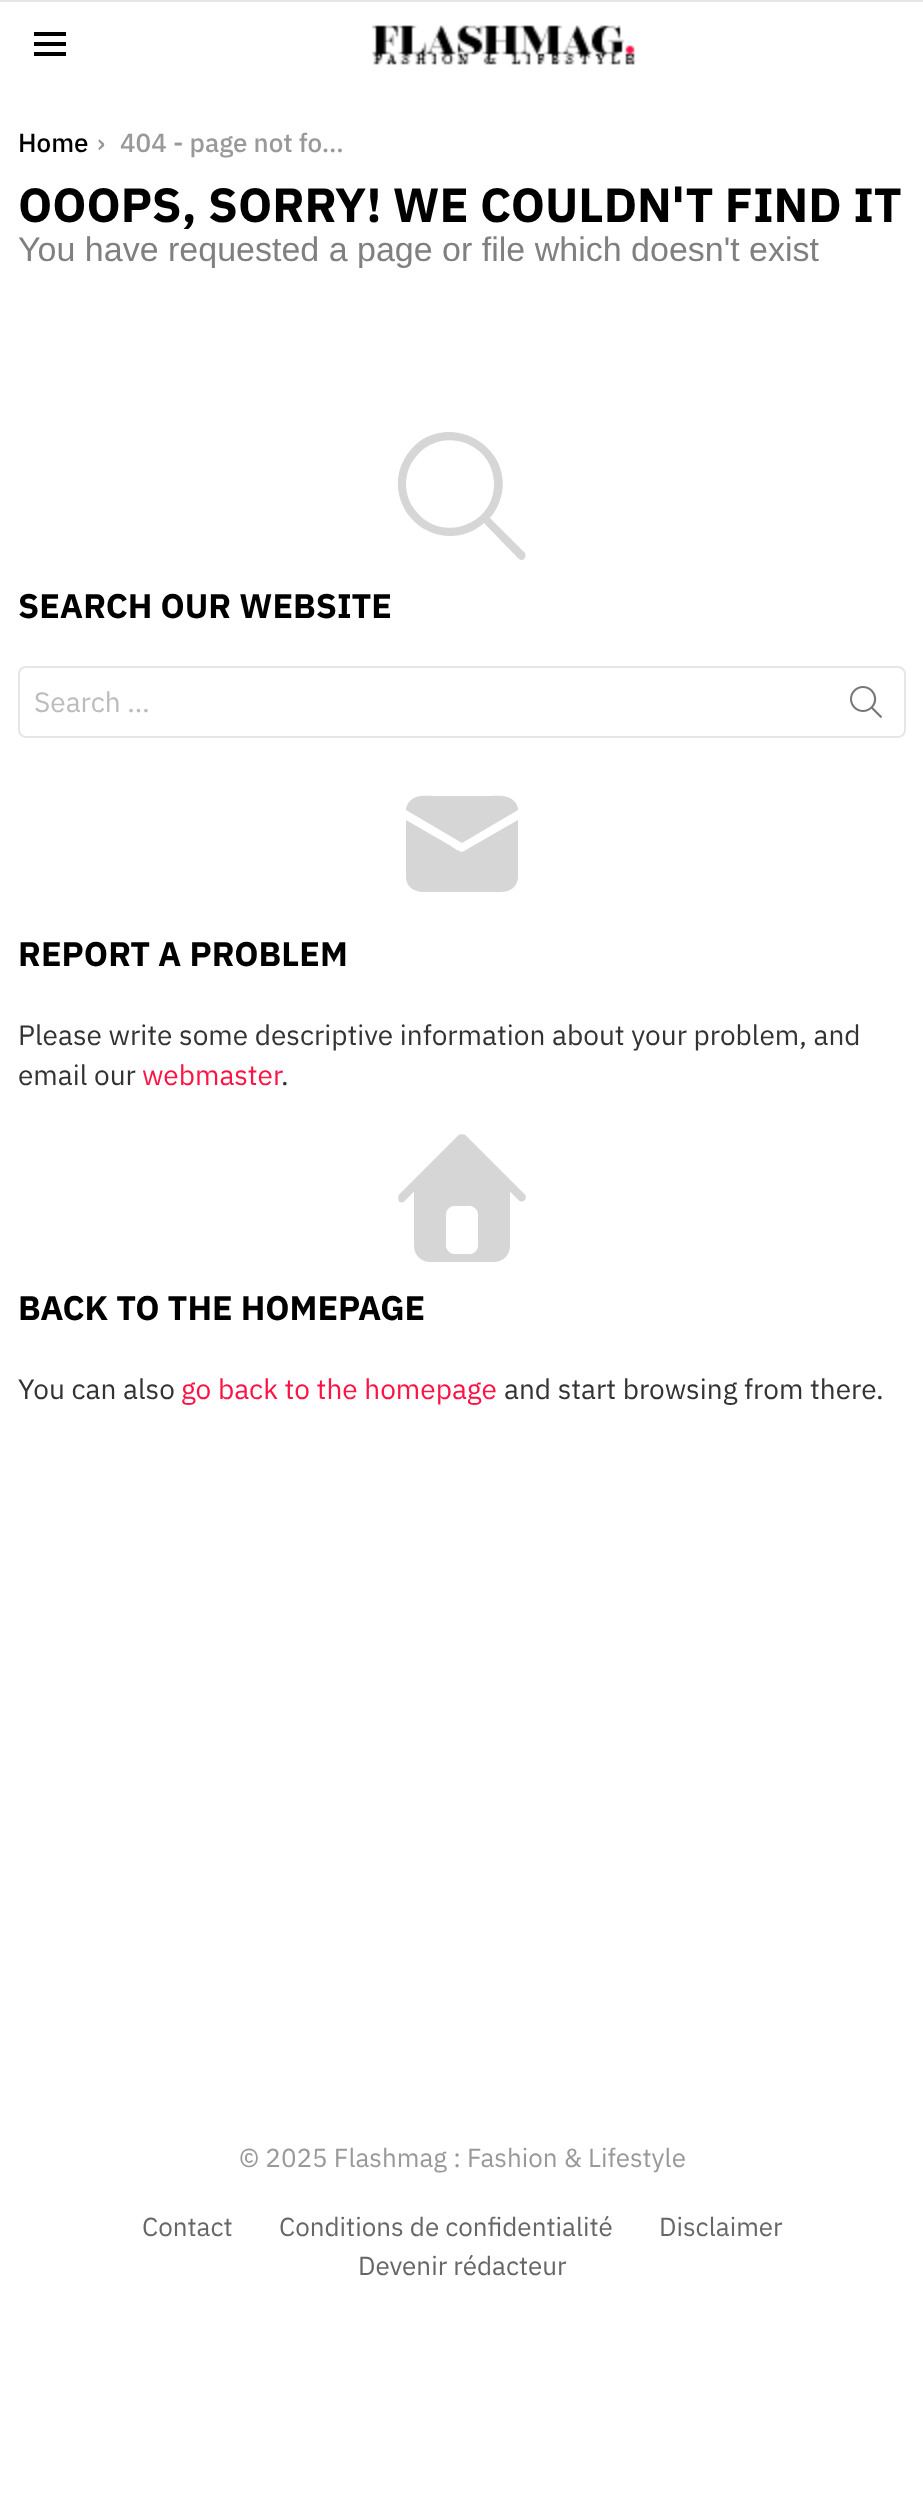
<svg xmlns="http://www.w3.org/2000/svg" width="923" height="2509">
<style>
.a{font:500 26px IBM Plex Sans;fill:#000}
.b{font:500 26px IBM Plex Sans;fill:#999}
.c{font:bold 48px IBM Plex Sans;fill:#000}
.d{font:34px Liberation Sans;fill:#808080}
.e{font:bold 34px IBM Plex Sans;fill:#000}
.f{font:28px IBM Plex Sans;fill:#bcbcbc}
.g{font:28px IBM Plex Sans;fill:#333}
.h{font:28px IBM Plex Sans;fill:#ff1344}
.i{font:26px IBM Plex Sans;fill:#999}
.j{font:26px IBM Plex Sans;fill:#666}
</style>
<rect width="100%" height="100%" fill="#fff"/>
<path fill="#e6e6e6" d="M0 0h923v2H0z"/>
<image href="1.png" x="34" y="32" width="32" height="24"/>
<image href="2.png" x="372" y="25" width="264" height="40"/>
<path fill="#d6d6d6" d="M525 553l-35-35c6-7 10-16 12-25c8-43-41-76-79-54c-11 7-19 18-23 30c-5 16-1 35 10 48c18 22 52 26 74 6l29 30c2 1 5 7 9 7c4-1 4-5 3-7zm-119-69c0-9 3-19 9-26c25-34 79-16 79 26c0 42-54 60-79 26c-6-7-9-17-9-26z"/>
<rect fill="none" stroke="#e6e6e6" stroke-width="2" x="19" y="667" width="886" height="70" rx="7"/>
<image href="3.png" x="850" y="686" width="32" height="32"/>
<path fill="#d6d6d6" d="M462 843l56-33c0-3-1-5-3-8c-7-8-17-6-26-6h-54c-9 0-19-2-26 6c-2 3-3 5-3 8zm2 8c-3 3-13-5-13-5l-45-26v58c2 16 18 14 29 14h54c11 0 27 2 29-14v-58z"/>
<image href="4.png" x="398" y="1134" width="128" height="128"/>
<text class="a" x="18" y="152">Home</text>
<text class="b" x="97" y="152">›</text>
<text class="b" x="120" y="152">404 - page not fo…</text>
<text class="c" x="18" y="222">OOOPS, SORRY! WE COULDN'T FIND IT</text>
<text class="d" x="18" y="261">You have requested a page or file which doesn't exist</text>
<text class="e" x="18" y="618">SEARCH OUR WEBSITE</text>
<text class="f" x="34" y="712">Search …</text>
<text class="e" x="18" y="966">REPORT A PROBLEM</text>
<text class="g" x="18" y="1045">Please write some descriptive information about your problem, and</text>
<text class="g" x="18" y="1085">email our</text>
<text class="h" x="142" y="1085">webmaster</text>
<text class="g" x="281" y="1085">.</text>
<text class="e" x="18" y="1320">BACK TO THE HOMEPAGE</text>
<text class="g" x="18" y="1399">You can also</text>
<text class="h" x="181" y="1399">go back to the homepage</text>
<text class="g" x="504" y="1399">and start browsing from there.</text>
<text class="i" x="239" y="2167">© 2025 Flashmag : Fashion &amp; Lifestyle</text>
<text class="j" x="142" y="2236">Contact</text>
<text class="j" x="279" y="2236">Conditions de confidentialité</text>
<text class="j" x="659" y="2236">Disclaimer</text>
<text class="j" x="358" y="2275">Devenir rédacteur</text>
</svg>
